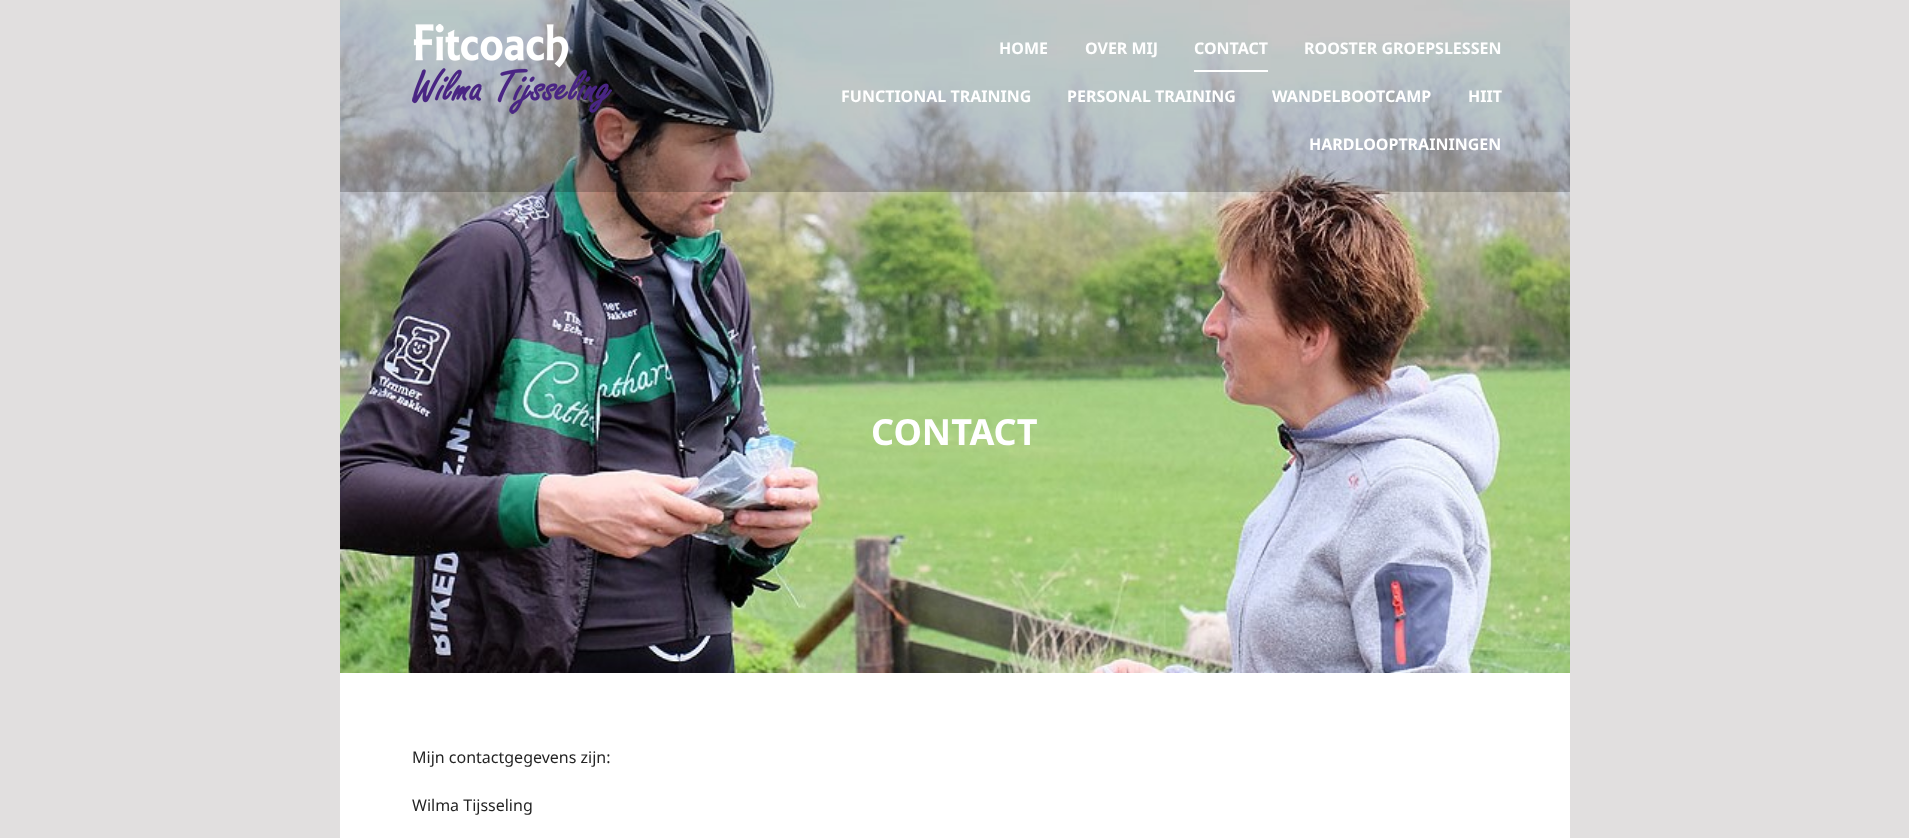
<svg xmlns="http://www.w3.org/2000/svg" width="1909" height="838">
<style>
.a{font:bold 16px Noto Sans;fill:#fff}
.b{font:bold 36px Noto Sans;fill:#fff}
.c{font:16px Noto Sans;fill:#242424}
</style>
<rect width="100%" height="100%" fill="#e1dfdf"/>
<path fill="#fff" d="M340 673h1230v165H340z"/>
<image href="2.png" x="340" y="0" width="1230" height="673"/>
<path fill="#00000038" d="M340 0h1230v192H340z"/>
<image href="1.png" x="412" y="24" width="200" height="90"/>
<path fill="#fff" d="M1194 70h74v2H1194z"/>
<text class="a" x="999" y="54">HOME</text>
<text class="a" x="1085" y="54">OVER MIJ</text>
<text class="a" x="1194" y="54">CONTACT</text>
<text class="a" x="1304" y="54">ROOSTER GROEPSLESSEN</text>
<text class="a" x="841" y="102">FUNCTIONAL TRAINING</text>
<text class="a" x="1067" y="102">PERSONAL TRAINING</text>
<text class="a" x="1272" y="102">WANDELBOOTCAMP</text>
<text class="a" x="1468" y="102">HIIT</text>
<text class="a" x="1309" y="150">HARDLOOPTRAININGEN</text>
<text class="b" x="871" y="445">CONTACT</text>
<text class="c" x="412" y="763">Mijn contactgegevens zijn:</text>
<text class="c" x="412" y="811">Wilma Tijsseling</text>
</svg>
